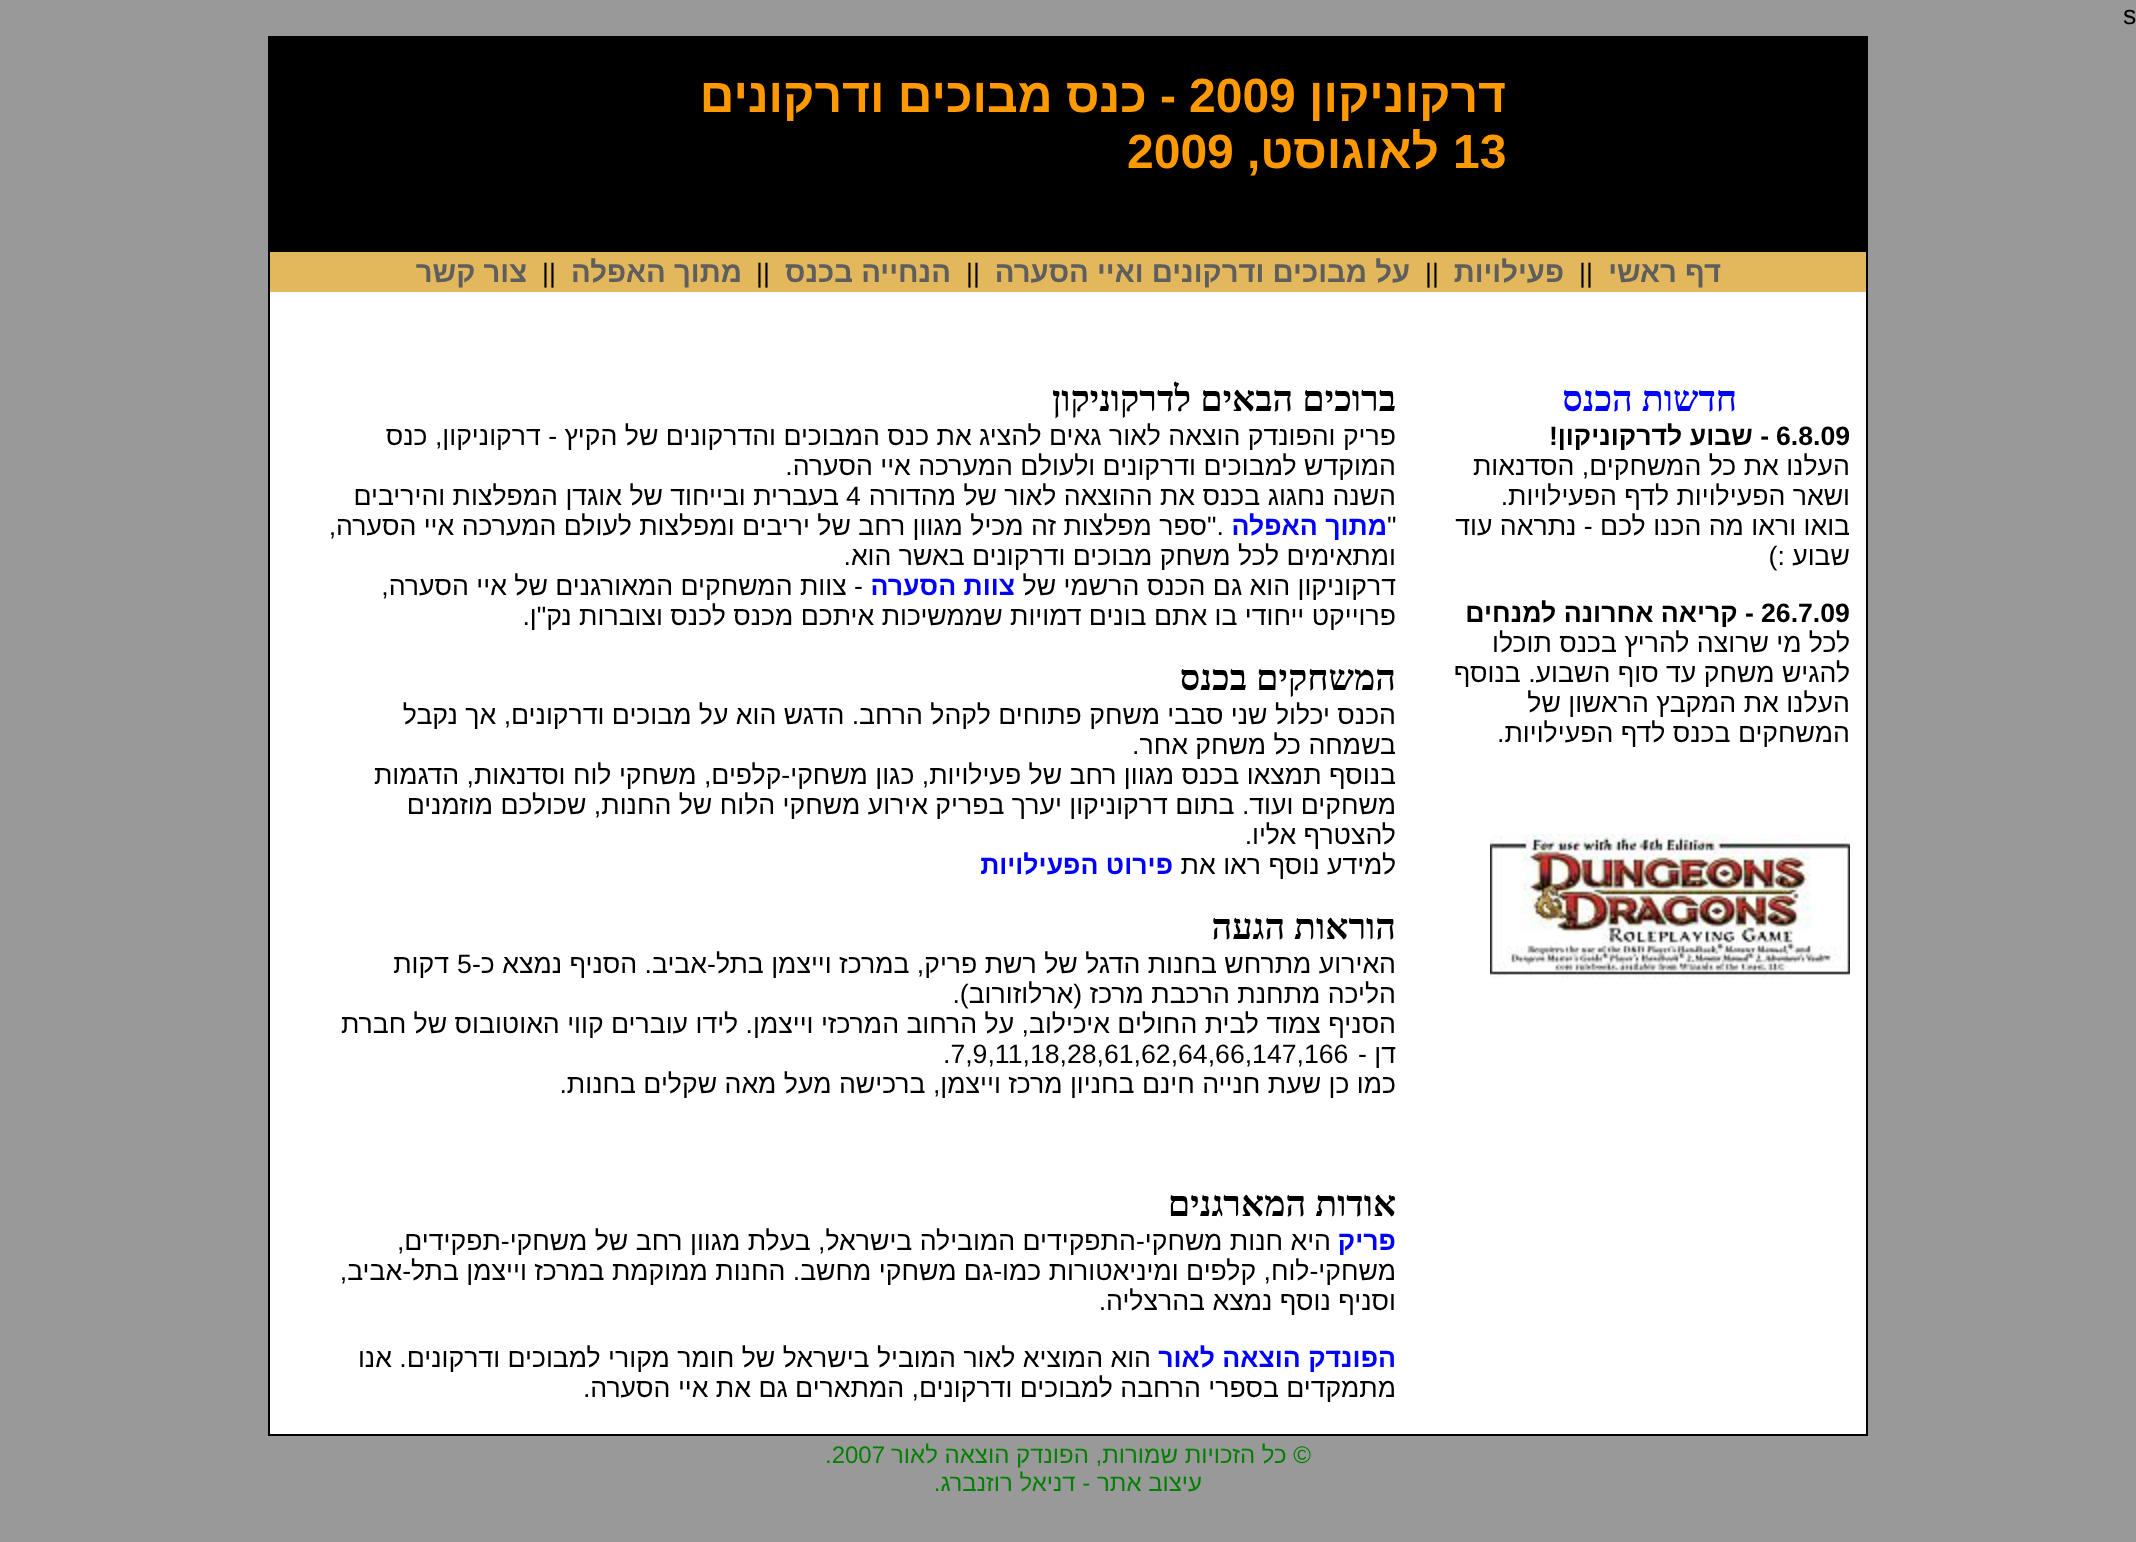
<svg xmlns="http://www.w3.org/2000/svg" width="2136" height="1542">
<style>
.a{font:26.65px Liberation Sans;fill:#000}
.b{font:bold 48px Liberation Sans;direction:rtl;fill:#f90}
.c{font:bold 48px Liberation Sans;fill:#f90}
.d{font:bold 29.3px Liberation Sans;direction:rtl;fill:#5e5e5e}
.e{font:bold 36px Liberation Serif;direction:rtl;fill:#00f}
.f{font:bold 26.65px Liberation Sans;fill:#000}
.g{font:bold 26.65px Liberation Sans;direction:rtl;fill:#000}
.h{font:26.65px Liberation Sans;direction:rtl;fill:#000}
.i{font:bold 36px Liberation Serif;direction:rtl;fill:#000}
.j{font:bold 26.65px Liberation Sans;direction:rtl;fill:#00f}
.k{font:24px Liberation Sans;direction:rtl;fill:#008000}
.l{font:24px Liberation Sans;fill:#008000}
</style>
<rect width="100%" height="100%" fill="#999"/>
<path fill="none" stroke="#000" stroke-width="2" d="M269 37h1598v212H269z"/>
<path fill="#000" d="M270 38h1596v210H270z"/>
<path fill="#fff" d="M270 292h1596v1142H270z"/>
<path fill="none" stroke="#000" stroke-width="2" d="M269 251h1598v1184H269z"/>
<path fill="#e3b75b" d="M270 252h1596v40H270z"/>
<image href="1.png" x="1490" y="834" width="360" height="144"/>
<text class="a" x="2123" y="24">s</text>
<text class="b" x="1506" y="112">דרקוניקון</text>
<text class="c" x="1189" y="112">2009</text>
<text class="b" x="1176" y="112">- כנס מבוכים ודרקונים</text>
<text class="c" x="1453" y="168">13</text>
<text class="b" x="1439" y="168">לאוגוסט,</text>
<text class="c" x="1127" y="168">2009</text>
<text class="d" x="1721" y="282">דף ראשי</text>
<text class="a" x="1579" y="282">||</text>
<text class="d" x="1564" y="282">פעילויות</text>
<text class="a" x="1425" y="282">||</text>
<text class="d" x="1410" y="282">על מבוכים ודרקונים ואיי הסערה</text>
<text class="a" x="966" y="282">||</text>
<text class="d" x="951" y="282">הנחייה בכנס</text>
<text class="a" x="756" y="282">||</text>
<text class="d" x="742" y="282">מתוך האפלה</text>
<text class="a" x="542" y="282">||</text>
<text class="d" x="527" y="282">צור קשר</text>
<text class="e" x="1737" y="411">חדשות הכנס</text>
<text class="f" x="1776" y="445">6.8.09</text>
<text class="g" x="1769" y="445">- שבוע לדרקוניקון!</text>
<text class="h" x="1850" y="475">העלנו את כל המשחקים, הסדנאות</text>
<text class="h" x="1850" y="505">ושאר הפעילויות לדף הפעילויות.</text>
<text class="h" x="1850" y="535">בואו וראו מה הכנו לכם - נתראה עוד</text>
<text class="h" x="1850" y="565">שבוע :)</text>
<text class="f" x="1761" y="622">26.7.09</text>
<text class="g" x="1754" y="622">- קריאה אחרונה למנחים</text>
<text class="h" x="1850" y="652">לכל מי שרוצה להריץ בכנס תוכלו</text>
<text class="h" x="1850" y="682">להגיש משחק עד סוף השבוע. בנוסף</text>
<text class="h" x="1850" y="712">העלנו את המקבץ הראשון של</text>
<text class="h" x="1850" y="742">המשחקים בכנס לדף הפעילויות.</text>
<text class="i" x="1396" y="411">ברוכים הבאים לדרקוניקון</text>
<text class="h" x="1396" y="445">פריק והפונדק הוצאה לאור גאים להציג את כנס המבוכים והדרקונים של הקיץ - דרקוניקון, כנס</text>
<text class="h" x="1396" y="475">המוקדש למבוכים ודרקונים ולעולם המערכה איי הסערה.</text>
<text class="h" x="1396" y="505">השנה נחגוג בכנס את ההוצאה לאור של מהדורה</text>
<text class="a" x="846" y="505">4</text>
<text class="h" x="839" y="505">בעברית ובייחוד של אוגדן המפלצות והיריבים</text>
<text class="a" x="1387" y="535">"</text>
<text class="j" x="1387" y="535">מתוך האפלה</text>
<text class="a" x="1207" y="535">".</text>
<text class="h" x="1207" y="535">ספר מפלצות זה מכיל מגוון רחב של יריבים ומפלצות לעולם המערכה איי הסערה,</text>
<text class="h" x="1396" y="565">ומתאימים לכל משחק מבוכים ודרקונים באשר הוא.</text>
<text class="h" x="1396" y="595">דרקוניקון הוא גם הכנס הרשמי של</text>
<text class="j" x="1015" y="595">צוות הסערה</text>
<text class="h" x="863" y="595">- צוות המשחקים המאורגנים של איי הסערה,</text>
<text class="h" x="1396" y="625">פרוייקט ייחודי בו אתם בונים דמויות שממשיכות איתכם מכנס לכנס וצוברות נק"ן.</text>
<text class="i" x="1396" y="690">המשחקים בכנס</text>
<text class="h" x="1396" y="724">הכנס יכלול שני סבבי משחק פתוחים לקהל הרחב. הדגש הוא על מבוכים ודרקונים, אך נקבל</text>
<text class="h" x="1396" y="754">בשמחה כל משחק אחר.</text>
<text class="h" x="1396" y="784">בנוסף תמצאו בכנס מגוון רחב של פעילויות, כגון משחקי-קלפים, משחקי לוח וסדנאות, הדגמות</text>
<text class="h" x="1396" y="814">משחקים ועוד. בתום דרקוניקון יערך בפריק אירוע משחקי הלוח של החנות, שכולכם מוזמנים</text>
<text class="h" x="1396" y="844">להצטרף אליו.</text>
<text class="h" x="1396" y="874">למידע נוסף ראו את</text>
<text class="j" x="1173" y="874">פירוט הפעילויות</text>
<text class="i" x="1396" y="939">הוראות הגעה</text>
<text class="h" x="1396" y="973">האירוע מתרחש בחנות הדגל של רשת פריק, במרכז וייצמן בתל-אביב. הסניף נמצא כ-</text>
<text class="a" x="457" y="973">5</text>
<text class="h" x="449" y="973">דקות</text>
<text class="h" x="1396" y="1003">הליכה מתחנת הרכבת מרכז (ארלוזורוב).</text>
<text class="h" x="1396" y="1033">הסניף צמוד לבית החולים איכילוב, על הרחוב המרכזי וייצמן. לידו עוברים קווי האוטובוס של חברת</text>
<text class="h" x="1396" y="1063">דן -</text>
<text class="a" x="943" y="1063">.7,9,11,18,28,61,62,64,66,147,166</text>
<text class="h" x="1396" y="1093">כמו כן שעת חנייה חינם בחניון מרכז וייצמן, ברכישה מעל מאה שקלים בחנות.</text>
<text class="i" x="1396" y="1216">אודות המארגנים</text>
<text class="j" x="1396" y="1250">פריק</text>
<text class="h" x="1331" y="1250">היא חנות משחקי-התפקידים המובילה בישראל, בעלת מגוון רחב של משחקי-תפקידים,</text>
<text class="h" x="1396" y="1280">משחקי-לוח, קלפים ומיניאטורות כמו-גם משחקי מחשב. החנות ממוקמת במרכז וייצמן בתל-אביב,</text>
<text class="h" x="1396" y="1310">וסניף נוסף נמצא בהרצליה.</text>
<text class="j" x="1396" y="1367">הפונדק הוצאה לאור</text>
<text class="h" x="1151" y="1367">הוא המוציא לאור המוביל בישראל של חומר מקורי למבוכים ודרקונים. אנו</text>
<text class="h" x="1396" y="1397">מתמקדים בספרי הרחבה למבוכים ודרקונים, המתארים גם את איי הסערה.</text>
<text class="k" x="1311" y="1463">© כל הזכויות שמורות, הפונדק הוצאה לאור</text>
<text class="l" x="825" y="1463">.2007</text>
<text class="k" x="1202" y="1491">עיצוב אתר - דניאל רוזנברג.</text>
</svg>
